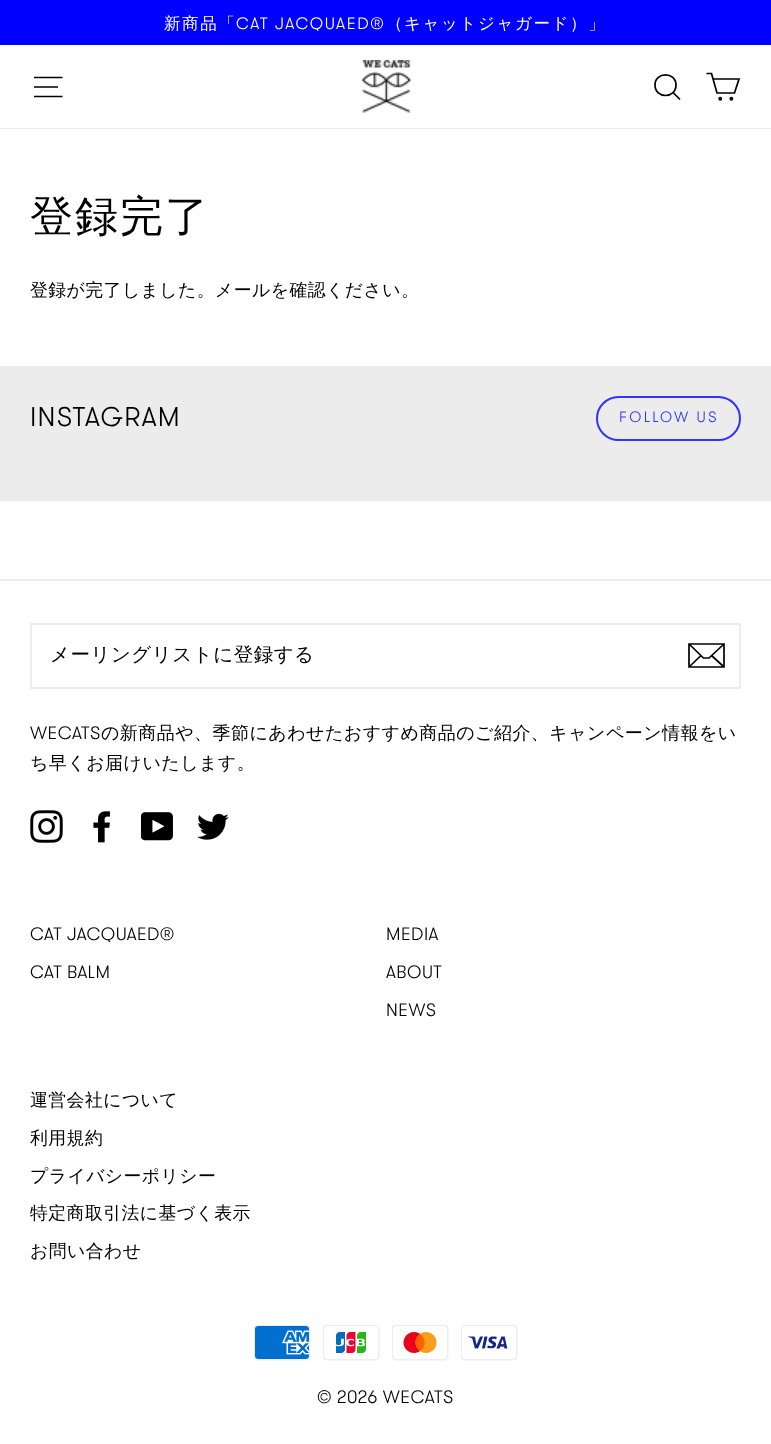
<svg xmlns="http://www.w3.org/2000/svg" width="771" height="1444">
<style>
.a{font:500 16.5px WenQuanYi Zen Hei;letter-spacing:1.6px;fill:#fff}
.b{font:300 16.5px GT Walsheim;letter-spacing:1.6px;fill:#fff}
.c{font:500 43px WenQuanYi Zen Hei;letter-spacing:2px;fill:#000}
.d{font:500 17.85px WenQuanYi Zen Hei;letter-spacing:0.45px;fill:#000}
.e{font:300 27px GT Walsheim;letter-spacing:1.25px;fill:#000}
.f{font:300 15px GT Walsheim;letter-spacing:2.25px;fill:#33f}
.g{font:500 19.5px WenQuanYi Zen Hei;letter-spacing:0.5px;fill:#000}
.h{font:300 18px GT Walsheim;letter-spacing:0.45px;fill:#000}
.i{font:500 18px WenQuanYi Zen Hei;letter-spacing:0.45px;fill:#000}
.j{font:300 17.85px GT Walsheim;letter-spacing:0.45px;fill:#000}
</style>
<rect width="100%" height="100%" fill="#fff"/>
<path fill="#00f" d="M0 0h771v45H0z"/>
<path fill="#ececec" d="M0 128h771v1H0z"/>
<path fill="none" stroke="#000" stroke-width="1.7" d="M34 77.5h28.5m-28.5 9.5h24m-24 9.5h28.5"/>
<image href="1.png" x="361" y="60" width="51" height="53"/>
<path fill="none" stroke="#000" stroke-width="1.7" d="M676 85c0 14-21 14-21 0c0-13.5 21-13.5 21 0zm4 14.5l-7-7"/>
<path fill="none" stroke="#000" stroke-width="1.7" d="M713 79h26l-4.5 14h-17.5l-5.5-19.5h-5"/>
<circle fill="none" stroke="#000" stroke-width="1.7" cx="720.2" cy="98.8" r="1.1"/>
<circle fill="none" stroke="#000" stroke-width="1.7" cx="731.4" cy="98.8" r="1.1"/>
<path fill="#ececec" d="M0 366h771v135H0z"/>
<rect fill="none" stroke="#33f" stroke-width="2" x="597" y="397" width="143" height="43" rx="21.5"/>
<path fill="#ececec" d="M0 579h771v2H0z"/>
<path fill="none" stroke="#ececec" stroke-width="2" d="M31 624h709v64H31z"/>
<path fill="none" stroke="#000" stroke-width="1.7" d="M724 667h-35v-23h35zm-35-23l14.5 14h5.5l15-14m-23 11.5l-11.5 11m34 0l-12-11"/>
<image href="2.png" x="30" y="810" width="33" height="33"/>
<image href="3.png" x="93" y="811" width="17" height="32"/>
<image href="4.png" x="141" y="812" width="32" height="29"/>
<image href="5.png" x="197" y="813" width="32" height="27"/>
<image href="6.png" x="254" y="1325" width="57" height="36"/>
<image href="7.png" x="323" y="1325" width="57" height="36"/>
<image href="8.png" x="392" y="1325" width="57" height="36"/>
<image href="9.png" x="461" y="1325" width="57" height="36"/>
<text class="a" x="164" y="29">新商品「</text>
<text class="b" x="236" y="29">CAT JACQUAED®</text>
<text class="a" x="386" y="29">（キャットジャガード）」</text>
<text class="c" x="30" y="231">登録完了</text>
<text class="d" x="30" y="296">登録が完了しました。メールを確認ください。</text>
<text class="e" x="30" y="426">INSTAGRAM</text>
<text class="f" x="619" y="422">FOLLOW US</text>
<text class="g" x="50" y="661">メーリングリストに登録する</text>
<text class="h" x="30" y="739">WECATS</text>
<text class="i" x="101" y="739">の新商品や、季節にあわせたおすすめ商品のご紹介、キャンペーン情報をい</text>
<text class="i" x="30" y="769">ち早くお届けいたします。</text>
<text class="j" x="30" y="940">CAT JACQUAED®</text>
<text class="j" x="30" y="978">CAT BALM</text>
<text class="j" x="386" y="940">MEDIA</text>
<text class="j" x="386" y="978">ABOUT</text>
<text class="j" x="386" y="1016">NEWS</text>
<text class="d" x="30" y="1106">運営会社について</text>
<text class="d" x="30" y="1144">利用規約</text>
<text class="d" x="30" y="1182">プライバシーポリシー</text>
<text class="d" x="30" y="1219">特定商取引法に基づく表示</text>
<text class="d" x="30" y="1257">お問い合わせ</text>
<text class="h" x="317" y="1403">© 2026 WECATS</text>
</svg>
